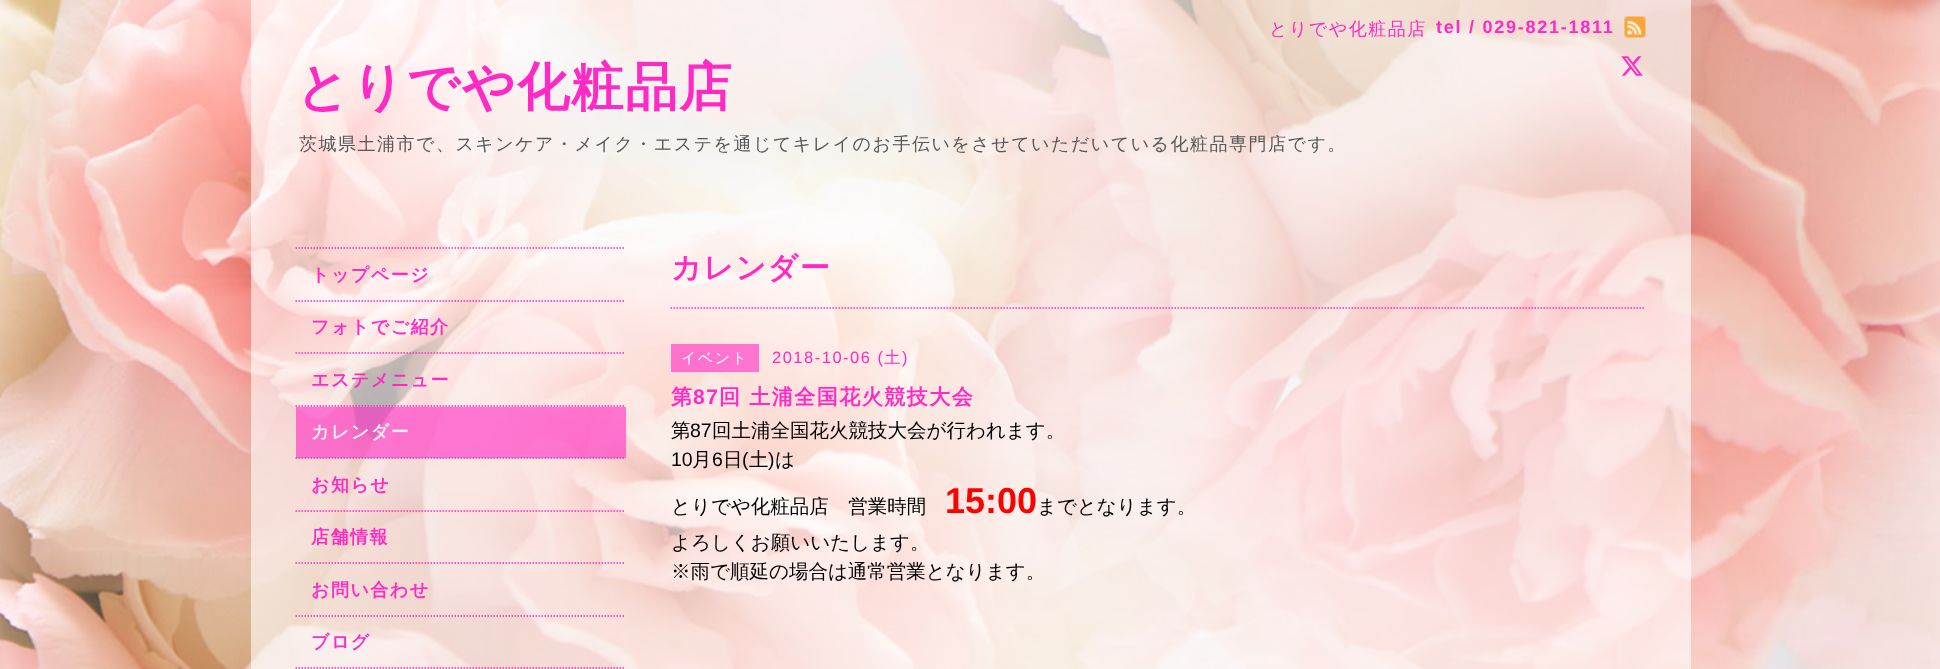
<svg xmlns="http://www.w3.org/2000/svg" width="1940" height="669">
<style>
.a{font:500 18px WenQuanYi Zen Hei;letter-spacing:1.5px;fill:#ff2ac5}
.b{font:bold 18px Liberation Sans;letter-spacing:1.75px;fill:#ff2ac5}
.c{font:bold 52.5px WenQuanYi Zen Hei;letter-spacing:1.5px;fill:#ff2ac5}
.d{font:500 18px WenQuanYi Zen Hei;letter-spacing:1.5px;fill:#575757}
.e{font:bold 18px WenQuanYi Zen Hei;letter-spacing:1.5px;fill:#ff2ac5}
.f{font:bold 18px WenQuanYi Zen Hei;letter-spacing:1.5px;fill:#eee}
.g{font:bold 30px WenQuanYi Zen Hei;letter-spacing:1.5px;fill:#ff2ac5}
.h{font:500 15px WenQuanYi Zen Hei;letter-spacing:1.5px;fill:#fff}
.i{font:16.5px Liberation Sans;letter-spacing:1.5px;fill:#ff2ac5}
.j{font:500 16.5px WenQuanYi Zen Hei;letter-spacing:1.5px;fill:#ff2ac5}
.k{font:bold 21px WenQuanYi Zen Hei;letter-spacing:1.5px;fill:#ff2ac5}
.l{font:bold 21px Liberation Sans;letter-spacing:1.5px;fill:#ff2ac5}
.m{font:500 19.5px WenQuanYi Zen Hei;fill:#000}
.n{font:19.5px Liberation Sans;fill:#000}
.o{font:bold 36px Liberation Sans;fill:#f00}
</style>
<rect width="100%" height="100%" fill="#fff"/>
<image href="1.png" x="0" y="0" width="1940" height="669"/>
<path fill="#ffffff99" d="M251 0h1440v669H251z"/>
<image href="2.png" x="1624" y="16" width="22" height="22"/>
<image href="3.png" x="1621" y="56" width="22" height="20"/>
<path fill="none" stroke="#ff2ac5" stroke-width="1.5" stroke-dasharray="1.5 1.5" d="M295.5 248h330"/>
<path fill="none" stroke="#ff2ac5" stroke-width="1.5" stroke-dasharray="1.5 1.5" d="M295.5 301h330"/>
<path fill="none" stroke="#ff2ac5" stroke-width="1.5" stroke-dasharray="1.5 1.5" d="M295.5 353h330"/>
<path fill="none" stroke="#ff2ac5" stroke-width="1.5" stroke-dasharray="1.5 1.5" d="M295.5 406h330"/>
<path fill="none" stroke="#ff2ac5" stroke-width="1.5" stroke-dasharray="1.5 1.5" d="M295.5 458h330"/>
<path fill="#ff2ac599" d="M296 407h330v51H296z"/>
<path fill="none" stroke="#ff2ac5" stroke-width="1.5" stroke-dasharray="1.5 1.5" d="M295.5 511h330"/>
<path fill="none" stroke="#ff2ac5" stroke-width="1.5" stroke-dasharray="1.5 1.5" d="M295.5 563h330"/>
<path fill="none" stroke="#ff2ac5" stroke-width="1.5" stroke-dasharray="1.5 1.5" d="M295.5 616h330"/>
<path fill="none" stroke="#ff2ac5" stroke-width="1.5" stroke-dasharray="1.5 1.5" d="M295.5 668h330"/>
<path fill="none" stroke="#ff2ac5" stroke-width="1.5" stroke-dasharray="1.5 1.5" d="M670.5 308h975"/>
<path fill="#ff2ac599" d="M671 344h88v28H671z"/>
<text class="a" x="1269" y="35">とりでや化粧品店</text>
<text class="b" x="1436" y="33">tel / 029-821-1811</text>
<text class="c" x="296" y="105">とりでや化粧品店</text>
<text class="d" x="299" y="150">茨城県土浦市で、スキンケア・メイク・エステを通じてキレイのお手伝いをさせていただいている化粧品専門店です。</text>
<text class="e" x="311" y="281">トップページ</text>
<text class="e" x="311" y="333">フォトでご紹介</text>
<text class="e" x="311" y="386">エステメニュー</text>
<text class="f" x="311" y="438">カレンダー</text>
<text class="e" x="311" y="491">お知らせ</text>
<text class="e" x="311" y="543">店舗情報</text>
<text class="e" x="311" y="596">お問い合わせ</text>
<text class="e" x="311" y="648">ブログ</text>
<text class="g" x="671" y="278">カレンダー</text>
<text class="h" x="681" y="363">イベント</text>
<text class="i" x="772" y="363">2018-10-06 (</text>
<text class="j" x="884" y="363">土</text>
<text class="i" x="902" y="363">)</text>
<text class="k" x="671" y="404">第</text>
<text class="l" x="693" y="404">87</text>
<text class="k" x="719" y="404">回 土浦全国花火競技大会</text>
<text class="m" x="671" y="437">第</text>
<text class="n" x="690" y="437">87</text>
<text class="m" x="712" y="437">回土浦全国花火競技大会が行われます。</text>
<text class="n" x="671" y="466">10</text>
<text class="m" x="692" y="466">月</text>
<text class="n" x="712" y="466">6</text>
<text class="m" x="723" y="466">日</text>
<text class="n" x="742" y="466">(</text>
<text class="m" x="749" y="466">土</text>
<text class="n" x="768" y="466">)</text>
<text class="m" x="775" y="466">は</text>
<text class="m" x="671" y="513">とりでや化粧品店　営業時間</text>
<text class="o" x="945" y="513">15:00</text>
<text class="m" x="1037" y="513">までとなります。</text>
<text class="m" x="671" y="549">よろしくお願いいたします。</text>
<text class="m" x="671" y="578">※雨で順延の場合は通常営業となります。</text>
</svg>
